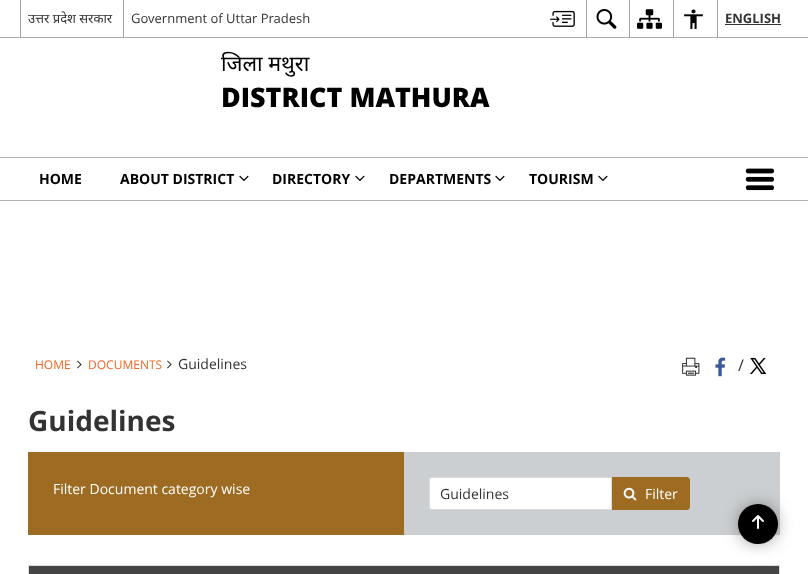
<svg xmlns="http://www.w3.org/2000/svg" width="808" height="574">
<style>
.a{font:13px Noto Sans;fill:#333}
.b{font:13px Open Sans;fill:#333}
.c{font:bold 13px Open Sans;fill:#333}
.d{font:21.5px Noto Sans;fill:#000}
.e{font:800 26.9px Open Sans;fill:#000}
.f{font:bold 14px Open Sans;fill:#000}
.g{font:12px Open Sans;fill:#f26522}
.h{font:14px Open Sans;fill:#333}
.i{font:16px Open Sans;fill:#333}
.j{font:bold 28px Open Sans;fill:#333}
.k{font:14px Open Sans;fill:#fff}
</style>
<rect width="100%" height="100%" fill="#fff"/>
<path fill="#ababab" d="M0 37h808v1H0z"/>
<path fill="#a3a3a3" d="M20 0h1v37H20z"/>
<path fill="#a3a3a3" d="M123 0h1v37H123z"/>
<image href="1.png" x="550" y="10" width="25" height="17"/>
<path fill="#a3a3a3" d="M586 0h1v37H586z"/>
<image href="2.png" x="596" y="9" width="21" height="20"/>
<path fill="#a3a3a3" d="M629 0h1v37H629z"/>
<image href="3.png" x="637" y="9" width="25" height="20"/>
<path fill="#a3a3a3" d="M673 0h1v37H673z"/>
<image href="4.png" x="684" y="9" width="19" height="20"/>
<path fill="#a3a3a3" d="M717 0h1v37H717z"/>
<path fill="#333" d="M725 24h56v1H725z"/>
<path fill="#b3b3b3" d="M0 157h808v1H0z"/>
<path fill="#b3b3b3" d="M0 200h808v1H0z"/>
<image href="5.png" x="239" y="175" width="10" height="7"/>
<image href="5.png" x="355" y="175" width="10" height="7"/>
<image href="5.png" x="495" y="175" width="10" height="7"/>
<image href="5.png" x="598" y="175" width="10" height="7"/>
<image href="6.png" x="745" y="168" width="30" height="23"/>
<image href="7.png" x="77" y="360" width="5" height="9"/>
<image href="7.png" x="167" y="360" width="5" height="9"/>
<image href="8.png" x="682" y="357" width="18" height="19"/>
<image href="9.png" x="715" y="357" width="11" height="20"/>
<image href="10.png" x="750" y="357" width="17" height="18"/>
<path fill="#cccfd1" d="M404 452h376v83H404z"/>
<path fill="#9e6b22" d="M28 452h376v83H28z"/>
<path fill="#fff" stroke="#dbdbdb" d="M432 477.5h179.5v32h-179.5c-1.5 0-2.5-1-2.5-2.5v-27c0-1.5 1-2.5 2.5-2.5z"/>
<path fill="#9e6b22" d="M612 477h75c1.5 0 3 1.5 3 3v27c0 1.5-1.5 3-3 3h-75z"/>
<image href="11.png" x="623" y="487" width="14" height="14"/>
<path fill="#ddd" d="M28 565h752v1H28z"/>
<path fill="#ddd" d="M779 565h1v9H779z"/>
<path fill="#ddd" d="M28 565h1v9H28z"/>
<path fill="#444" d="M29 566h750v8H29z"/>
<rect fill="#3c3c3c" filter="blur(9.5px)" x="743" y="509" width="30" height="30" rx="15"/>
<circle fill="#000" cx="758" cy="524" r="20"/>
<image href="12.png" x="752" y="515" width="12" height="14"/>
<text class="a" x="28" y="23">उत्तर प्रदेश सरकार</text>
<text class="b" x="131" y="23">Government of Uttar Pradesh</text>
<text class="c" x="725" y="23">ENGLISH</text>
<text class="d" x="221" y="71">जिला मथुरा</text>
<text class="e" x="221" y="107">DISTRICT MATHURA</text>
<text class="f" x="39" y="184">HOME</text>
<text class="f" x="120" y="184">ABOUT DISTRICT</text>
<text class="f" x="272" y="184">DIRECTORY</text>
<text class="f" x="389" y="184">DEPARTMENTS</text>
<text class="f" x="529" y="184">TOURISM</text>
<text class="g" x="35" y="369">HOME</text>
<text class="g" x="88" y="369">DOCUMENTS</text>
<text class="h" x="178" y="369">Guidelines</text>
<text class="i" x="738" y="371">/</text>
<text class="j" x="28" y="431">Guidelines</text>
<text class="k" x="53" y="494">Filter Document category wise</text>
<text class="h" x="440" y="499">Guidelines</text>
<text class="k" x="645" y="499">Filter</text>
</svg>
